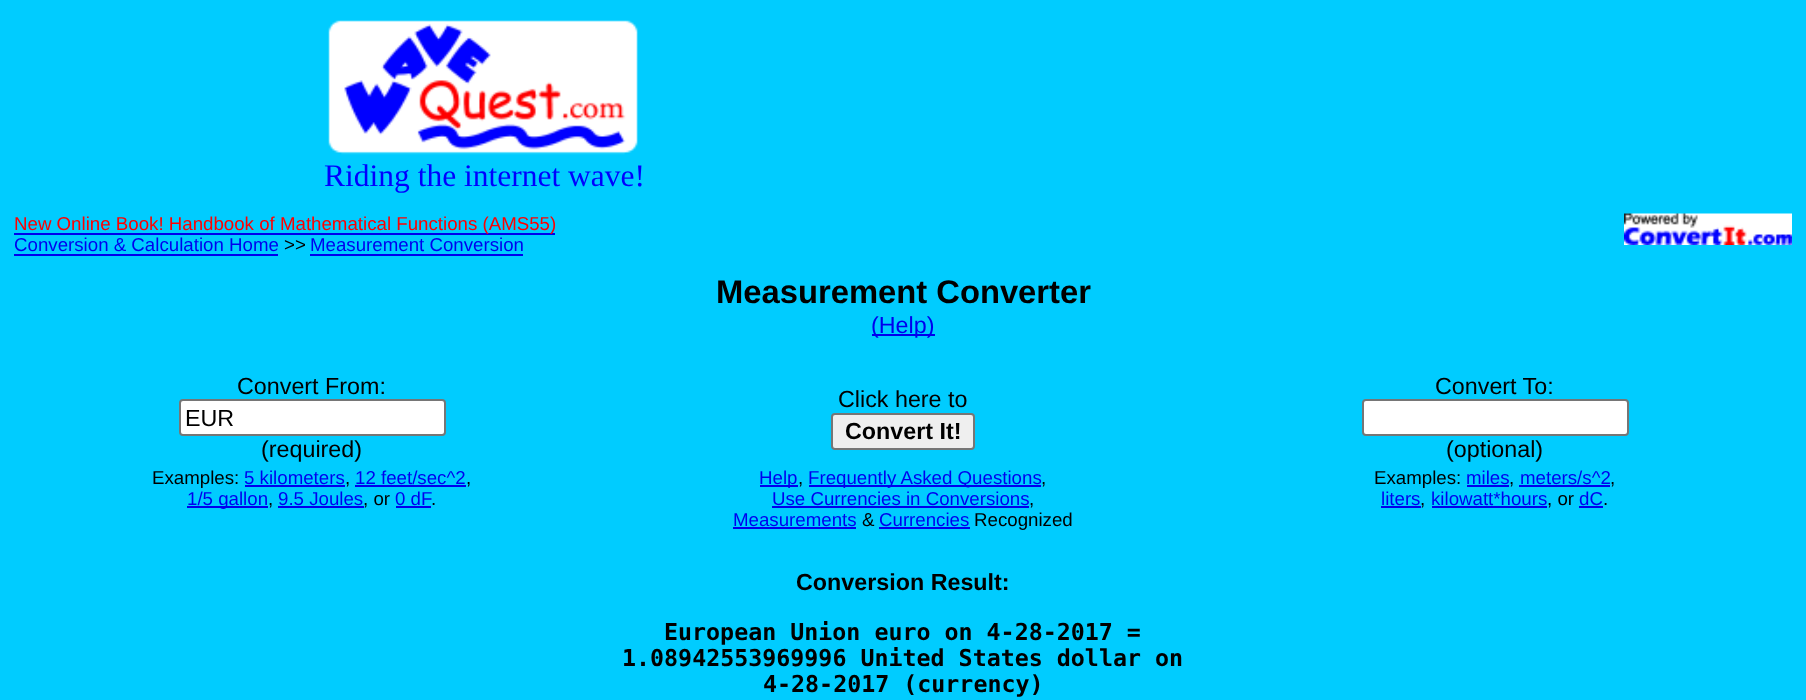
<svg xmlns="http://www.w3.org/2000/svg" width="1806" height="700">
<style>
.a{font:31.5px Liberation Serif;fill:#00f}
.b{font:18.7px Liberation Sans;fill:#f00}
.c{font:18.7px Liberation Sans;fill:#00e}
.d{font:18.7px Liberation Sans;fill:#000}
.e{font:bold 32.75px Liberation Sans;fill:#000}
.f{font:23.3px Liberation Sans;fill:#00e}
.g{font:23.3px Liberation Sans;fill:#000}
.h{font:bold 23.3px Liberation Sans;fill:#000}
.i{font:bold 23.3px DejaVu Sans Mono;fill:#000}
</style>
<rect width="100%" height="100%" fill="#0cf"/>
<image href="1.png" x="328" y="20" width="310" height="135"/>
<path fill="#00e" d="M14 233h541v2H14z"/>
<image href="2.png" x="1624" y="213" width="168" height="32"/>
<path fill="#00e" d="M14 254h264v2H14z"/>
<path fill="#00e" d="M310 254h213v2H310z"/>
<path fill="#00e" d="M872 334h63v2H872z"/>
<rect fill="#fff" stroke="#767676" stroke-width="2" x="180" y="400" width="265" height="35" rx="3"/>
<rect fill="#efefef" stroke="#767676" stroke-width="2" x="832" y="414" width="142" height="35" rx="3"/>
<rect fill="#fff" stroke="#767676" stroke-width="2" x="1363" y="400" width="265" height="35" rx="3"/>
<path fill="#00e" d="M245 485h100v2H245z"/>
<path fill="#00e" d="M355 485h111v2H355z"/>
<path fill="#00e" d="M187 506h81v2H187z"/>
<path fill="#00e" d="M278 506h86v2H278z"/>
<path fill="#00e" d="M396 506h35v2H396z"/>
<path fill="#00e" d="M760 485h38v2H760z"/>
<path fill="#00e" d="M809 485h232v2H809z"/>
<path fill="#00e" d="M772 506h257v2H772z"/>
<path fill="#00e" d="M733 527h123v2H733z"/>
<path fill="#00e" d="M879 527h91v2H879z"/>
<path fill="#00e" d="M1467 485h42v2H1467z"/>
<path fill="#00e" d="M1519 485h91v2H1519z"/>
<path fill="#00e" d="M1381 506h40v2H1381z"/>
<path fill="#00e" d="M1432 506h115v2H1432z"/>
<path fill="#00e" d="M1579 506h24v2H1579z"/>
<text class="a" x="324" y="186">Riding the internet wave!</text>
<text class="b" x="14" y="230">New Online Book! Handbook of Mathematical Functions (AMS55)</text>
<text class="c" x="14" y="251">Conversion &amp; Calculation Home</text>
<text class="d" x="284" y="251">&gt;&gt;</text>
<text class="c" x="310" y="251">Measurement Conversion</text>
<text class="e" x="716" y="303">Measurement Converter</text>
<text class="f" x="871" y="333">(Help)</text>
<text class="g" x="237" y="394">Convert From:</text>
<text class="g" x="185" y="426">EUR</text>
<text class="g" x="261" y="457">(required)</text>
<text class="g" x="838" y="407">Click here to</text>
<text class="h" x="845" y="439">Convert It!</text>
<text class="g" x="1435" y="394">Convert To:</text>
<text class="g" x="1446" y="457">(optional)</text>
<text class="d" x="152" y="484">Examples:</text>
<text class="c" x="244" y="484">5 kilometers</text>
<text class="d" x="345" y="484">,</text>
<text class="c" x="355" y="484">12 feet/sec^2</text>
<text class="d" x="466" y="484">,</text>
<text class="c" x="187" y="505">1/5 gallon</text>
<text class="d" x="268" y="505">,</text>
<text class="c" x="278" y="505">9.5 Joules</text>
<text class="d" x="363" y="505">, or</text>
<text class="c" x="395" y="505">0 dF</text>
<text class="d" x="431" y="505">.</text>
<text class="c" x="759" y="484">Help</text>
<text class="d" x="798" y="484">,</text>
<text class="c" x="808" y="484">Frequently Asked Questions</text>
<text class="d" x="1041" y="484">,</text>
<text class="c" x="772" y="505">Use Currencies in Conversions</text>
<text class="d" x="1029" y="505">,</text>
<text class="c" x="733" y="526">Measurements</text>
<text class="d" x="862" y="526">&amp;</text>
<text class="c" x="879" y="526">Currencies</text>
<text class="d" x="974" y="526">Recognized</text>
<text class="d" x="1374" y="484">Examples:</text>
<text class="c" x="1466" y="484">miles</text>
<text class="d" x="1509" y="484">,</text>
<text class="c" x="1520" y="484">meters/s^2</text>
<text class="d" x="1610" y="484">,</text>
<text class="c" x="1381" y="505">liters</text>
<text class="d" x="1420" y="505">,</text>
<text class="c" x="1431" y="505">kilowatt*hours</text>
<text class="d" x="1547" y="505">, or</text>
<text class="c" x="1579" y="505">dC</text>
<text class="d" x="1603" y="505">.</text>
<text class="h" x="796" y="590">Conversion Result:</text>
<text class="i" x="664" y="640">European Union euro on 4-28-2017 =</text>
<text class="i" x="622" y="666">1.08942553969996 United States dollar on</text>
<text class="i" x="763" y="692">4-28-2017 (currency)</text>
</svg>
